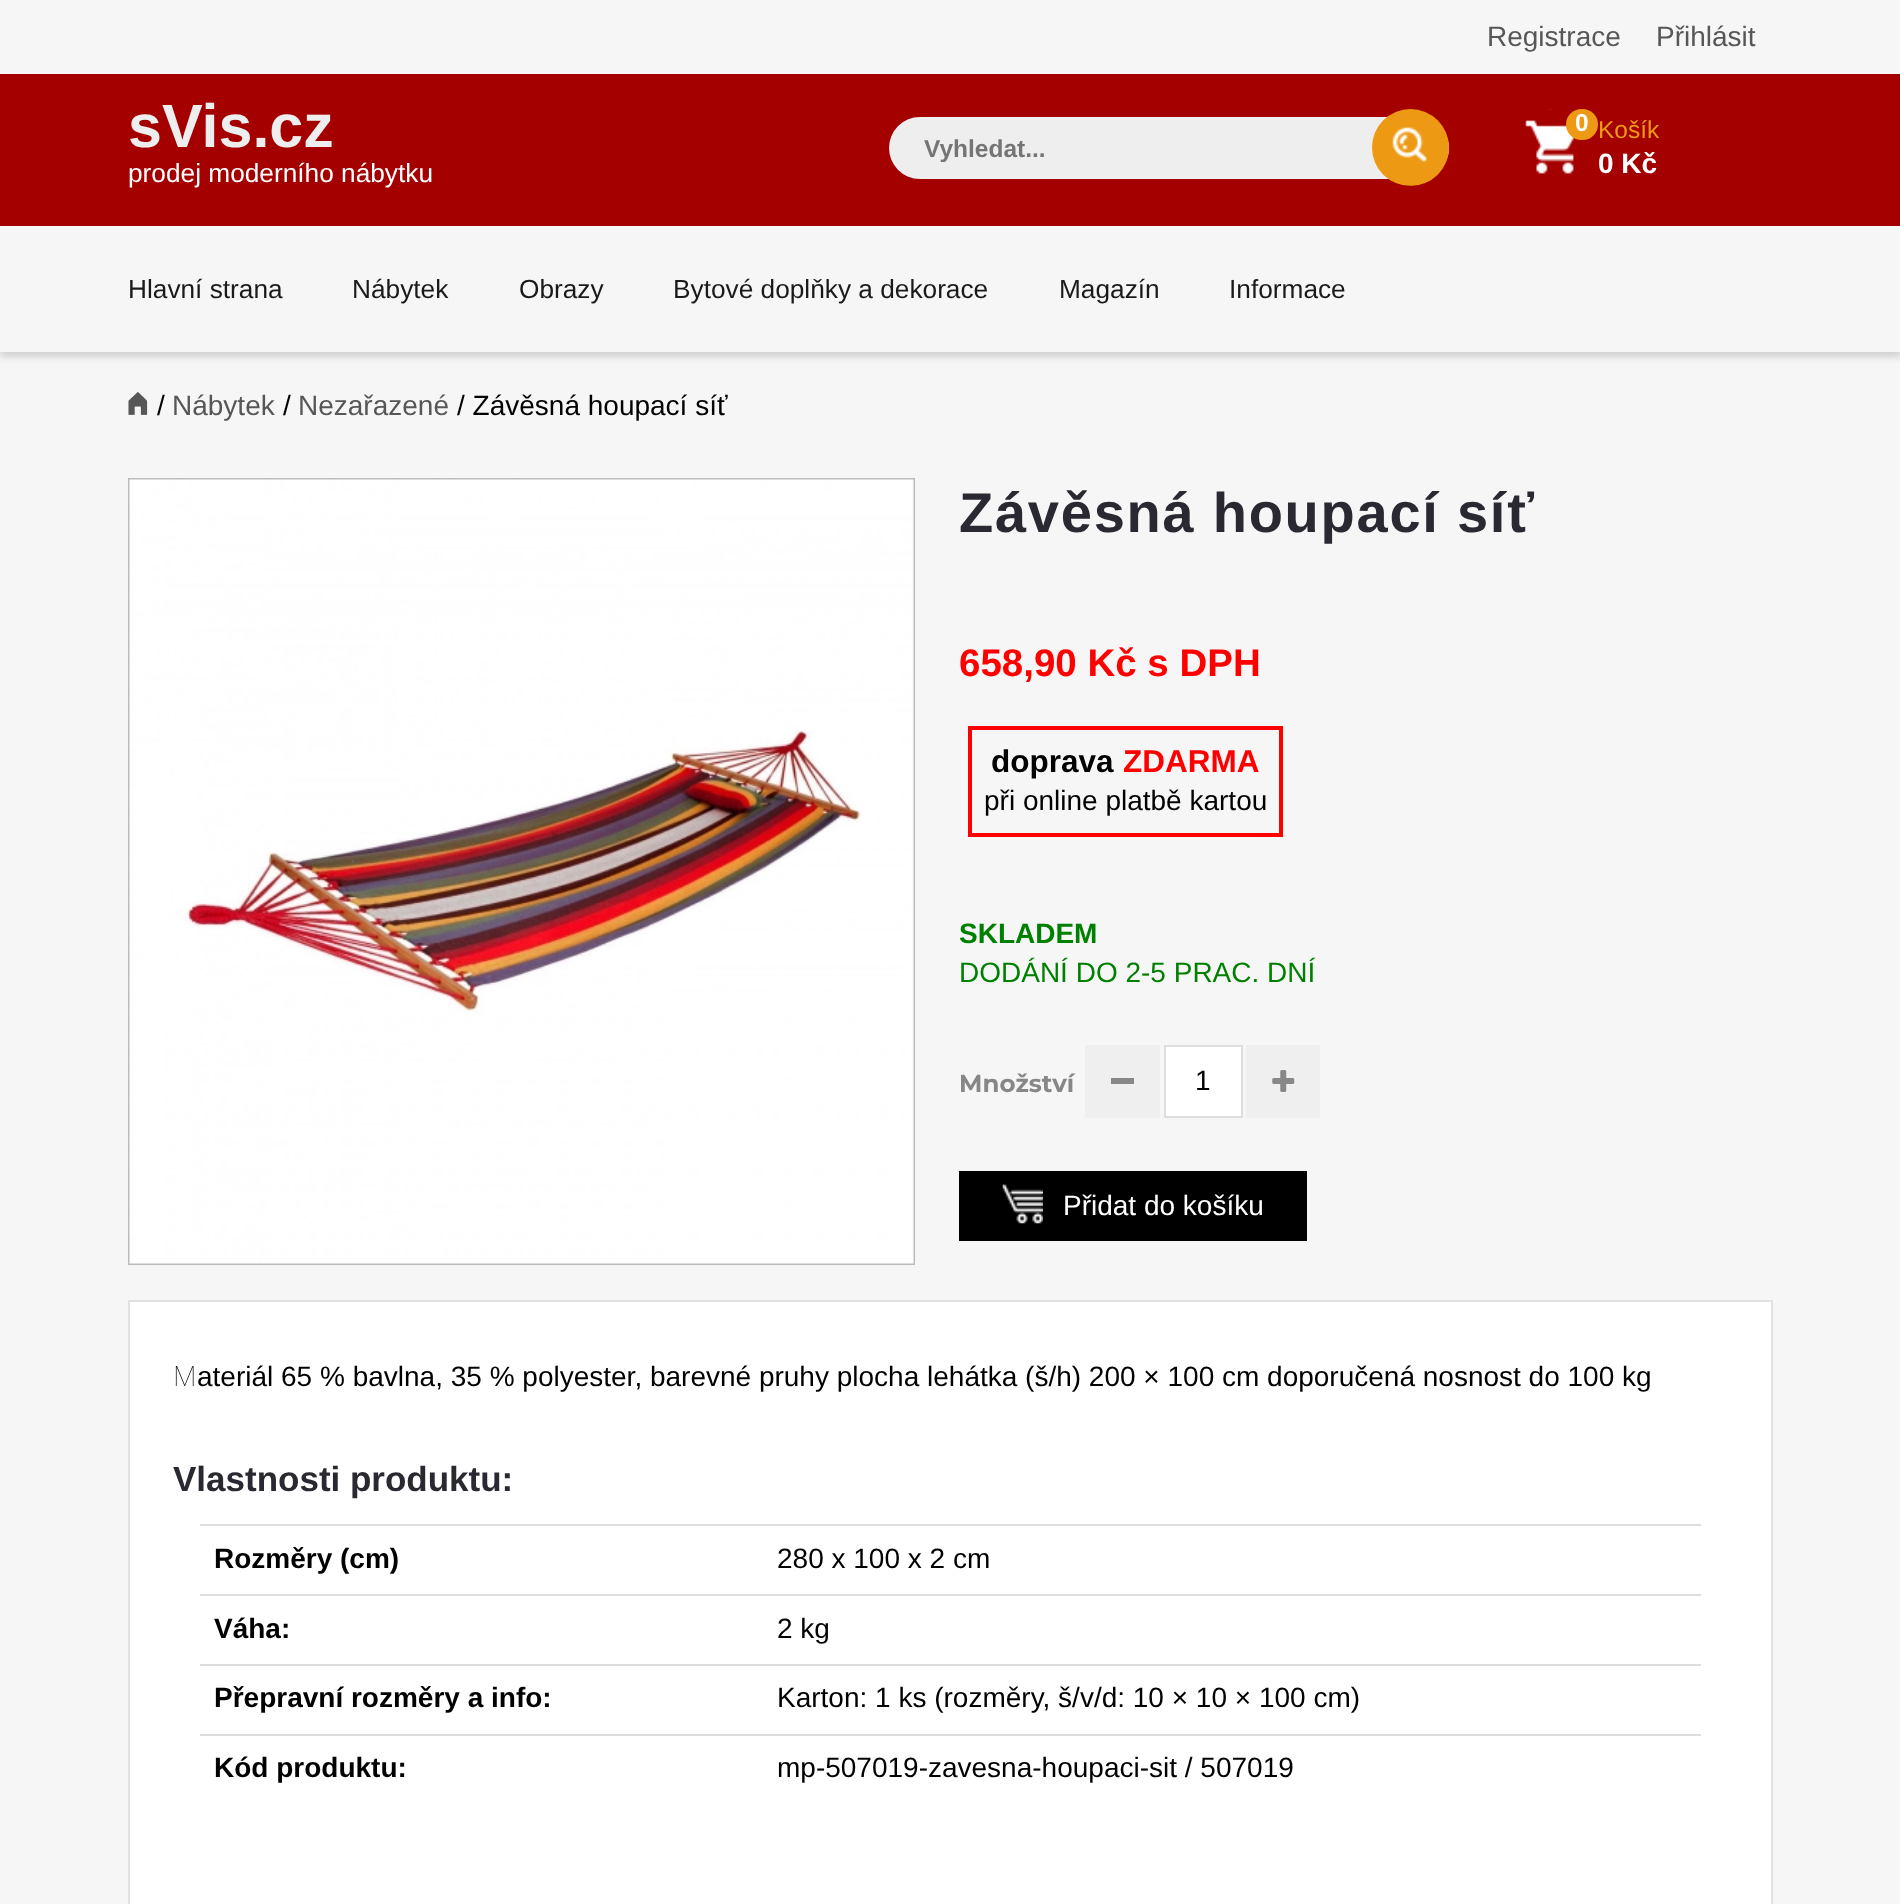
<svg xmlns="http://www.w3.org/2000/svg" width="1900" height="1904">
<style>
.a{font:28px Liberation Sans;fill:#575757}
.b{font:bold 61px Liberation Sans;fill:#eee}
.c{font:26.25px Liberation Sans;fill:#fff}
.d{font:bold 24.5px Liberation Sans;fill:#757575}
.e{font:bold 24.5px Liberation Sans;fill:#fff}
.f{font:24.5px Liberation Sans;fill:#ed9913}
.g{font:bold 28px Liberation Sans;fill:#fff}
.h{font:26.25px Liberation Sans;fill:#1a1a1a}
.i{font:28px Liberation Sans;fill:#010101}
.j{font:bold 56px Liberation Sans;letter-spacing:1.75px;fill:#2a2931}
.k{font:bold 38.5px Liberation Sans;fill:#f00}
.l{font:bold 31.5px Liberation Sans;fill:#010101}
.m{font:bold 31.5px Liberation Sans;fill:#f00}
.n{font:bold 28px Liberation Sans;fill:#008000}
.o{font:28px Liberation Sans;fill:#008000}
.p{font:bold 24.5px Montserrat;fill:#878787}
.q{font:28px Liberation Sans;fill:#fff}
.r{font:100 28px Noto Sans;fill:#010101}
.s{font:bold 35px Liberation Sans;fill:#2a2931}
.t{font:bold 28px Liberation Sans;fill:#010101}
</style>
<defs>
<clipPath id="clip1"><path d="M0 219h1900v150h-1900zm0 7h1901v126h-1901z" clip-rule="evenodd"/></clipPath>
</defs>
<rect width="100%" height="100%" fill="#f6f6f6"/>
<path fill="#a50000" d="M0 74h1900v152H0z"/>
<rect fill="#eee" x="889" y="117" width="560" height="62" rx="31"/>
<circle fill="#ed9913" cx="1410.5" cy="147.5" r="38.5"/>
<image href="1.png" x="1392" y="127" width="35" height="59"/>
<image href="2.png" x="1525" y="108" width="51" height="66"/>
<rect fill="#ed9913" x="1566" y="109" width="32" height="31" rx="15.5"/>
<g clip-path="url(#clip1)">
<path fill="#00000026" filter="blur(3.5px)" d="M0 231h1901v126H0z"/>
</g>
<image href="3.png" x="128" y="392" width="20" height="23"/>
<path fill="none" stroke="#bbb" stroke-width="2" d="M129 479h785v785H129z"/>
<image href="4.png" x="129" y="479" width="785" height="785"/>
<path fill="none" stroke="#f00" stroke-width="4" d="M970 728h311v107H970z"/>
<path fill="#efefef" d="M1085 1045h75v73H1085z"/>
<path fill="#888" d="M1111 1078h23v6H1111z"/>
<path fill="#fff" stroke="#dedede" stroke-width="2" d="M1165 1046h77v71H1165z"/>
<path fill="#efefef" d="M1246 1045h74v73H1246z"/>
<image href="5.png" x="1272" y="1070" width="23" height="22"/>
<path fill="#000" d="M959 1171h348v70H959z"/>
<image href="6.png" x="1002" y="1184" width="41" height="40"/>
<path fill="#fff" stroke="#e1e1e1" stroke-width="2" d="M129 1301h1643v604H129z"/>
<path fill="#ddd" d="M200 1524h1501v2H200z"/>
<path fill="#ddd" d="M200 1594h1501v2H200z"/>
<path fill="#ddd" d="M200 1664h1501v2H200z"/>
<path fill="#ddd" d="M200 1734h1501v2H200z"/>
<text class="a" x="1487" y="46">Registrace</text>
<text class="a" x="1656" y="46">Přihlásit</text>
<text class="b" x="128" y="147">sVis.cz</text>
<text class="c" x="128" y="182">prodej moderního nábytku</text>
<text class="d" x="924" y="157">Vyhledat...</text>
<text class="e" x="1575" y="131">0</text>
<text class="f" x="1598" y="138">Košík</text>
<text class="g" x="1598" y="173">0 Kč</text>
<text class="h" x="128" y="298">Hlavní strana</text>
<text class="h" x="352" y="298">Nábytek</text>
<text class="h" x="519" y="298">Obrazy</text>
<text class="h" x="673" y="298">Bytové doplňky a dekorace</text>
<text class="h" x="1059" y="298">Magazín</text>
<text class="h" x="1229" y="298">Informace</text>
<text class="i" x="157" y="415">/</text>
<text class="a" x="172" y="415">Nábytek</text>
<text class="i" x="283" y="415">/</text>
<text class="a" x="298" y="415">Nezařazené</text>
<text class="i" x="457" y="415">/ Závěsná houpací síť</text>
<text class="j" x="959" y="532">Závěsná houpací síť</text>
<text class="k" x="959" y="676">658,90 Kč s DPH</text>
<text class="l" x="991" y="772">doprava</text>
<text class="m" x="1123" y="772">ZDARMA</text>
<text class="i" x="984" y="810">při online platbě kartou</text>
<text class="n" x="959" y="943">SKLADEM</text>
<text class="o" x="959" y="982">DODÁNÍ DO 2-5 PRAC. DNÍ</text>
<text class="p" x="959" y="1092">Množství</text>
<text class="i" x="1195" y="1090">1</text>
<text class="q" x="1063" y="1215">Přidat do košíku</text>
<text class="r" x="173" y="1386">M</text>
<text class="i" x="197" y="1386">ateriál 65 % bavlna, 35 % polyester, barevné pruhy plocha lehátka (š/h) 200 × 100 cm doporučená nosnost do 100 kg</text>
<text class="s" x="173" y="1491">Vlastnosti produktu:</text>
<text class="t" x="214" y="1568">Rozměry (cm)</text>
<text class="i" x="777" y="1568">280 x 100 x 2 cm</text>
<text class="t" x="214" y="1638">Váha:</text>
<text class="i" x="777" y="1638">2 kg</text>
<text class="t" x="214" y="1707">Přepravní rozměry a info:</text>
<text class="i" x="777" y="1707">Karton: 1 ks (rozměry, š/v/d: 10 × 10 × 100 cm)</text>
<text class="t" x="214" y="1777">Kód produktu:</text>
<text class="i" x="777" y="1777">mp-507019-zavesna-houpaci-sit / 507019</text>
</svg>
